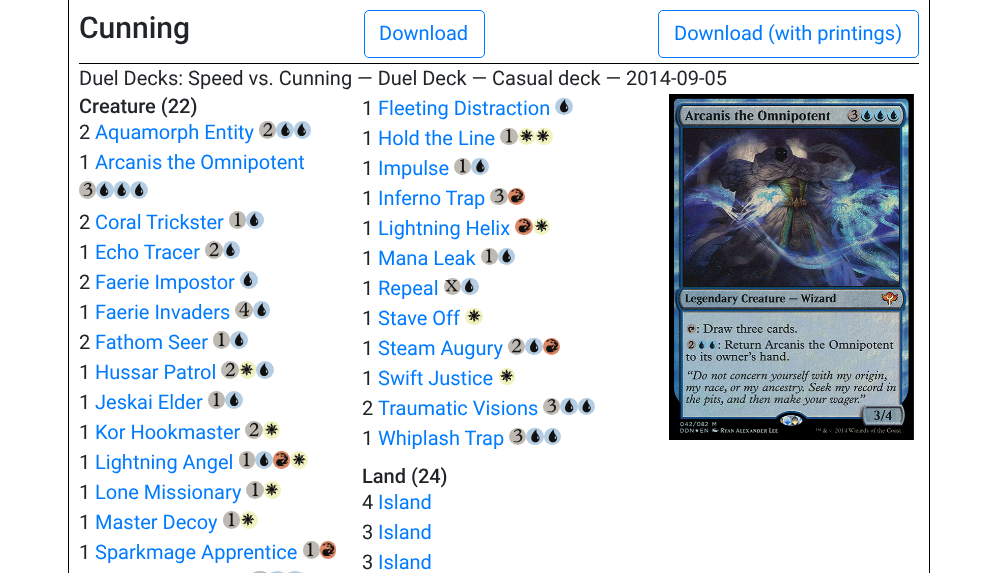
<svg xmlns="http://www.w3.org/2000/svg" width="997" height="573">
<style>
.a{font:500 30px Roboto;fill:#212529}
.b{font:20px Roboto;fill:#007bff}
.c{font:20px Roboto;fill:#212529}
.d{font:500 20px Roboto;fill:#212529}
</style>
<rect width="100%" height="100%" fill="#fff"/>
<path fill="none" stroke="#000" d="M68.5 -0.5h861v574H68.5z"/>
<path fill="#000" d="M79 63h840v1H79z"/>
<rect fill="none" stroke="#007bff" x="364.5" y="10.5" width="120" height="47" rx="4.5"/>
<rect fill="none" stroke="#007bff" x="658.5" y="10.5" width="260" height="47" rx="4.5"/>
<rect fill="#beb9b2" x="259" y="121" width="17" height="18" rx="8.5"/>
<image href="1.png" x="263" y="122" width="10" height="15"/>
<circle fill="#b5cde3" cx="285" cy="130" r="9"/>
<image href="2.png" x="281" y="123" width="9" height="14"/>
<rect fill="#b5cde3" x="294" y="121" width="17" height="18" rx="8.5"/>
<image href="3.png" x="297" y="123" width="9" height="14"/>
<rect fill="#beb9b2" x="79" y="181" width="17" height="18" rx="8.5"/>
<image href="4.png" x="83" y="182" width="10" height="15"/>
<circle fill="#b5cde3" cx="105" cy="190" r="9"/>
<image href="5.png" x="100" y="183" width="9" height="14"/>
<rect fill="#b5cde3" x="114" y="181" width="16" height="18" rx="8"/>
<image href="3.png" x="117" y="183" width="9" height="14"/>
<circle fill="#b5cde3" cx="139" cy="190" r="9"/>
<image href="5.png" x="135" y="183" width="9" height="14"/>
<rect fill="#beb9b2" x="229" y="211" width="17" height="18" rx="8.5"/>
<image href="6.png" x="235" y="212" width="6" height="15"/>
<circle fill="#b5cde3" cx="255" cy="220" r="9"/>
<image href="5.png" x="250" y="213" width="9" height="14"/>
<circle fill="#beb9b2" cx="214" cy="250" r="9"/>
<image href="7.png" x="209" y="242" width="10" height="15"/>
<rect fill="#b5cde3" x="223" y="241" width="17" height="18" rx="8.5"/>
<image href="2.png" x="226" y="243" width="9" height="14"/>
<circle fill="#b5cde3" cx="249" cy="280" r="9"/>
<image href="8.png" x="243" y="273" width="9" height="14"/>
<circle fill="#beb9b2" cx="244" cy="310" r="9"/>
<image href="9.png" x="239" y="302" width="10" height="15"/>
<rect fill="#b5cde3" x="253" y="301" width="17" height="18" rx="8.5"/>
<image href="3.png" x="257" y="303" width="9" height="14"/>
<rect fill="#beb9b2" x="213" y="331" width="17" height="18" rx="8.5"/>
<image href="10.png" x="218" y="332" width="7" height="15"/>
<circle fill="#b5cde3" cx="239" cy="340" r="9"/>
<image href="5.png" x="235" y="333" width="9" height="14"/>
<circle fill="#beb9b2" cx="230" cy="370" r="9"/>
<image href="11.png" x="225" y="362" width="10" height="15"/>
<rect fill="#f0f2c0" x="239" y="361" width="17" height="18" rx="8.5"/>
<image href="12.png" x="240" y="363" width="14" height="13"/>
<circle fill="#b5cde3" cx="265" cy="370" r="9"/>
<image href="5.png" x="260" y="363" width="9" height="14"/>
<rect fill="#beb9b2" x="208" y="391" width="17" height="18" rx="8.5"/>
<image href="10.png" x="213" y="392" width="7" height="15"/>
<circle fill="#b5cde3" cx="234" cy="400" r="9"/>
<image href="5.png" x="230" y="393" width="9" height="14"/>
<circle fill="#beb9b2" cx="254" cy="430" r="9"/>
<image href="7.png" x="249" y="422" width="10" height="15"/>
<rect fill="#f0f2c0" x="263" y="421" width="17" height="18" rx="8.5"/>
<image href="13.png" x="265" y="423" width="14" height="13"/>
<rect fill="#beb9b2" x="239" y="451" width="16" height="18" rx="8"/>
<image href="14.png" x="243" y="452" width="7" height="15"/>
<circle fill="#b5cde3" cx="264" cy="460" r="9"/>
<image href="5.png" x="260" y="453" width="9" height="14"/>
<rect fill="#db8664" x="273" y="451" width="17" height="18" rx="8.5"/>
<image href="15.png" x="276" y="452" width="12" height="15"/>
<circle fill="#f0f2c0" cx="299" cy="460" r="9"/>
<image href="16.png" x="292" y="453" width="14" height="13"/>
<circle fill="#beb9b2" cx="255" cy="490" r="9"/>
<image href="17.png" x="252" y="482" width="7" height="15"/>
<rect fill="#f0f2c0" x="264" y="481" width="17" height="18" rx="8.5"/>
<image href="12.png" x="265" y="483" width="14" height="13"/>
<rect fill="#beb9b2" x="223" y="511" width="17" height="18" rx="8.5"/>
<image href="10.png" x="228" y="512" width="7" height="15"/>
<circle fill="#f0f2c0" cx="249" cy="520" r="9"/>
<image href="18.png" x="241" y="513" width="14" height="13"/>
<rect fill="#beb9b2" x="303" y="541" width="17" height="18" rx="8.5"/>
<image href="19.png" x="307" y="542" width="7" height="15"/>
<rect fill="#db8664" x="320" y="541" width="16" height="18" rx="8"/>
<image href="20.png" x="322" y="542" width="13" height="15"/>
<rect fill="#beb9b2" x="251" y="571" width="18" height="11" rx="9"/>
<image href="21.png" x="263" y="572" width="2" height="1"/>
<rect fill="#b5cde3" x="269" y="571" width="17" height="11" rx="8.5"/>
<rect fill="#b5cde3" x="286" y="571" width="18" height="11" rx="9"/>
<path fill="#b2c9df" d="M296 572h1v1H296z"/>
<rect fill="#b5cde3" x="555" y="98" width="18" height="17" rx="8.5"/>
<image href="22.png" x="560" y="99" width="9" height="14"/>
<rect fill="#beb9b2" x="500" y="128" width="18" height="17" rx="8.5"/>
<image href="23.png" x="506" y="129" width="6" height="14"/>
<circle fill="#f0f2c0" cx="526.5" cy="136.5" r="8.5"/>
<image href="24.png" x="520" y="129" width="14" height="14"/>
<rect fill="#f0f2c0" x="535" y="128" width="18" height="17" rx="8.5"/>
<image href="25.png" x="536" y="129" width="14" height="14"/>
<circle fill="#beb9b2" cx="462.5" cy="166.5" r="8.5"/>
<image href="26.png" x="460" y="159" width="6" height="14"/>
<rect fill="#b5cde3" x="471" y="158" width="18" height="17" rx="8.5"/>
<image href="27.png" x="476" y="159" width="9" height="14"/>
<rect fill="#beb9b2" x="490" y="188" width="18" height="17" rx="8.5"/>
<image href="28.png" x="494" y="189" width="10" height="14"/>
<circle fill="#db8664" cx="516.5" cy="196.5" r="8.5"/>
<image href="29.png" x="511" y="189" width="12" height="14"/>
<rect fill="#db8664" x="515" y="218" width="18" height="17" rx="8.5"/>
<image href="30.png" x="518" y="219" width="13" height="14"/>
<circle fill="#f0f2c0" cx="541.5" cy="226.5" r="8.5"/>
<image href="24.png" x="535" y="219" width="14" height="14"/>
<circle fill="#beb9b2" cx="489.5" cy="256.5" r="8.5"/>
<image href="23.png" x="486" y="249" width="6" height="14"/>
<circle fill="#b5cde3" cx="506.5" cy="256.5" r="8.5"/>
<image href="31.png" x="502" y="249" width="9" height="14"/>
<circle fill="#beb9b2" cx="452.5" cy="286.5" r="8.5"/>
<image href="32.png" x="445" y="280" width="13" height="12"/>
<rect fill="#b5cde3" x="461" y="278" width="18" height="17" rx="8.5"/>
<image href="33.png" x="465" y="279" width="9" height="14"/>
<rect fill="#f0f2c0" x="465" y="308" width="18" height="17" rx="8.5"/>
<image href="34.png" x="467" y="309" width="14" height="14"/>
<circle fill="#beb9b2" cx="516.5" cy="346.5" r="8.5"/>
<image href="35.png" x="512" y="339" width="10" height="14"/>
<rect fill="#b5cde3" x="525" y="338" width="18" height="17" rx="8.5"/>
<image href="22.png" x="530" y="339" width="9" height="14"/>
<circle fill="#db8664" cx="551.5" cy="346.5" r="8.5"/>
<image href="29.png" x="546" y="339" width="12" height="14"/>
<rect fill="#f0f2c0" x="499" y="368" width="16" height="17" rx="8"/>
<image href="36.png" x="500" y="369" width="14" height="14"/>
<circle fill="#beb9b2" cx="551.5" cy="406.5" r="8.5"/>
<image href="37.png" x="547" y="399" width="9" height="14"/>
<rect fill="#b5cde3" x="560" y="398" width="18" height="17" rx="8.5"/>
<image href="22.png" x="565" y="399" width="9" height="14"/>
<circle fill="#b5cde3" cx="586.5" cy="406.5" r="8.5"/>
<image href="31.png" x="582" y="399" width="9" height="14"/>
<circle fill="#beb9b2" cx="517.5" cy="436.5" r="8.5"/>
<image href="38.png" x="513" y="429" width="10" height="14"/>
<rect fill="#b5cde3" x="526" y="428" width="18" height="17" rx="8.5"/>
<image href="27.png" x="531" y="429" width="9" height="14"/>
<circle fill="#b5cde3" cx="552.5" cy="436.5" r="8.5"/>
<image href="39.png" x="548" y="429" width="9" height="14"/>
<image href="40.png" x="669" y="94" width="245" height="346"/>
<text class="a" x="79" y="38">Cunning</text>
<text class="b" x="379" y="40">Download</text>
<text class="b" x="674" y="40">Download (with printings)</text>
<text class="c" x="79" y="85">Duel Decks: Speed vs. Cunning — Duel Deck — Casual deck — 2014-09-05</text>
<text class="d" x="79" y="113">Creature (22)</text>
<text class="c" x="79" y="139">2</text>
<text class="b" x="95" y="139">Aquamorph Entity</text>
<text class="c" x="79" y="169">1</text>
<text class="b" x="95" y="169">Arcanis the Omnipotent</text>
<text class="c" x="79" y="229">2</text>
<text class="b" x="95" y="229">Coral Trickster</text>
<text class="c" x="79" y="259">1</text>
<text class="b" x="95" y="259">Echo Tracer</text>
<text class="c" x="79" y="289">2</text>
<text class="b" x="95" y="289">Faerie Impostor</text>
<text class="c" x="79" y="319">1</text>
<text class="b" x="95" y="319">Faerie Invaders</text>
<text class="c" x="79" y="349">2</text>
<text class="b" x="95" y="349">Fathom Seer</text>
<text class="c" x="79" y="379">1</text>
<text class="b" x="95" y="379">Hussar Patrol</text>
<text class="c" x="79" y="409">1</text>
<text class="b" x="95" y="409">Jeskai Elder</text>
<text class="c" x="79" y="439">1</text>
<text class="b" x="95" y="439">Kor Hookmaster</text>
<text class="c" x="79" y="469">1</text>
<text class="b" x="95" y="469">Lightning Angel</text>
<text class="c" x="79" y="499">1</text>
<text class="b" x="95" y="499">Lone Missionary</text>
<text class="c" x="79" y="529">1</text>
<text class="b" x="95" y="529">Master Decoy</text>
<text class="c" x="79" y="559">1</text>
<text class="b" x="95" y="559">Sparkmage Apprentice</text>
<text class="c" x="362" y="115">1</text>
<text class="b" x="378" y="115">Fleeting Distraction</text>
<text class="c" x="362" y="145">1</text>
<text class="b" x="378" y="145">Hold the Line</text>
<text class="c" x="362" y="175">1</text>
<text class="b" x="378" y="175">Impulse</text>
<text class="c" x="362" y="205">1</text>
<text class="b" x="378" y="205">Inferno Trap</text>
<text class="c" x="362" y="235">1</text>
<text class="b" x="378" y="235">Lightning Helix</text>
<text class="c" x="362" y="265">1</text>
<text class="b" x="378" y="265">Mana Leak</text>
<text class="c" x="362" y="295">1</text>
<text class="b" x="378" y="295">Repeal</text>
<text class="c" x="362" y="325">1</text>
<text class="b" x="378" y="325">Stave Off</text>
<text class="c" x="362" y="355">1</text>
<text class="b" x="378" y="355">Steam Augury</text>
<text class="c" x="362" y="385">1</text>
<text class="b" x="378" y="385">Swift Justice</text>
<text class="c" x="362" y="415">2</text>
<text class="b" x="378" y="415">Traumatic Visions</text>
<text class="c" x="362" y="445">1</text>
<text class="b" x="378" y="445">Whiplash Trap</text>
<text class="d" x="362" y="483">Land (24)</text>
<text class="c" x="362" y="509">4</text>
<text class="b" x="378" y="509">Island</text>
<text class="c" x="362" y="539">3</text>
<text class="b" x="378" y="539">Island</text>
<text class="c" x="362" y="569">3</text>
<text class="b" x="378" y="569">Island</text>
</svg>
